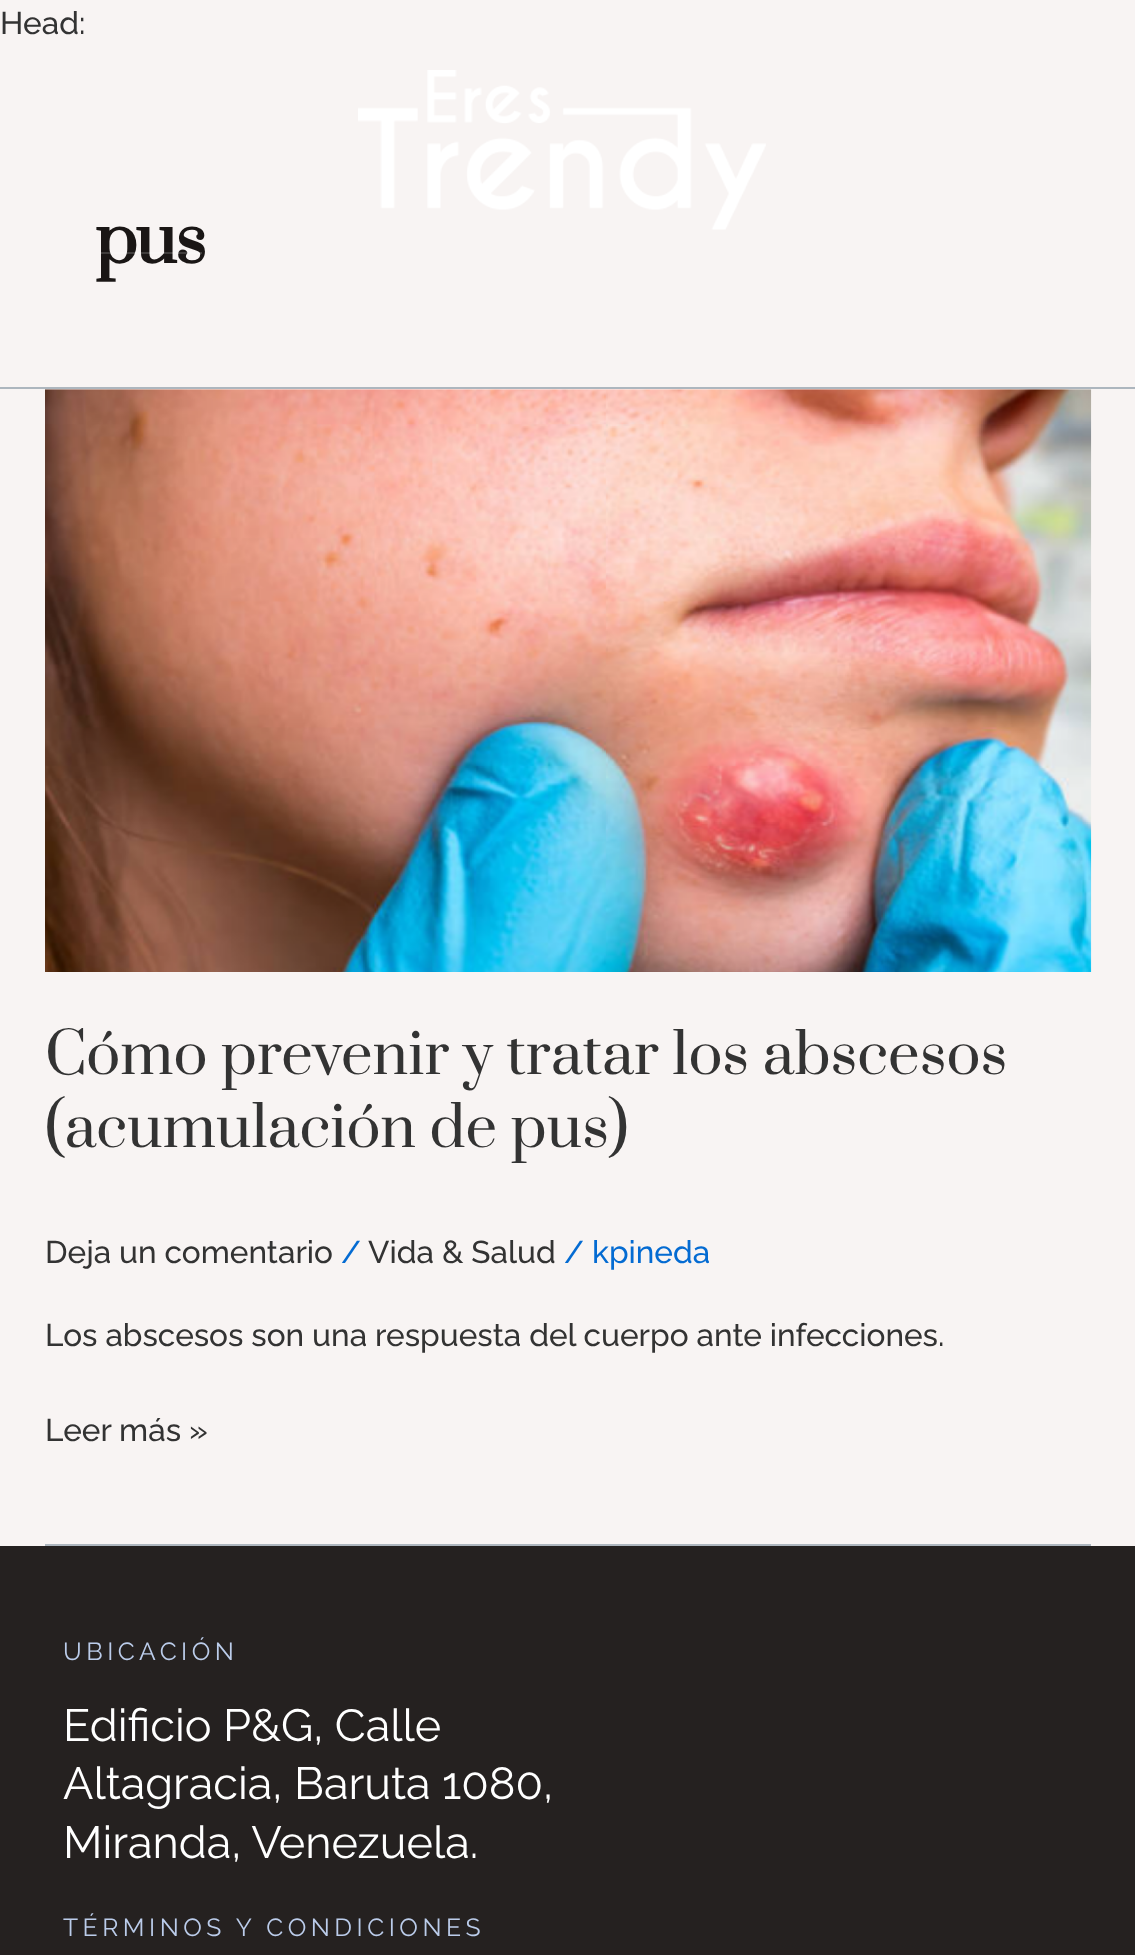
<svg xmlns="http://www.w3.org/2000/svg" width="1135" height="1955">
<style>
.a{font:500 31.5px Raleway;fill:#333}
.b{font:bold 66px Prata;letter-spacing:-2px;fill:#1a1615}
.c{font:56.25px Prata;fill:#333}
.d{font:500 31.5px Raleway;fill:#046bd2}
.e{font:24.75px Raleway;letter-spacing:4.5px;fill:#bbccea}
.f{font:45px Raleway;fill:#fff}
</style>
<rect width="100%" height="100%" fill="#f8f4f3"/>
<image href="1.png" x="358" y="70" width="408" height="160"/>
<path fill="#adb6be" d="M0 387h1135v2H0z"/>
<path fill="#adb6be" d="M45 1544h1046v2H45z"/>
<image href="2.png" x="45" y="389" width="1047" height="583"/>
<path fill="#252120" d="M0 1546h1135v409H0z"/>
<text class="a" x="0" y="34">Head:</text>
<text class="b" x="95" y="263">pus</text>
<path fill="#ffffff2b" d="M100 252h102v2H100z"/>
<text class="c" x="45" y="1074">Cómo prevenir y tratar los abscesos</text>
<text class="c" x="45" y="1147">(acumulación de pus)</text>
<text class="a" x="45" y="1263">Deja un comentario</text>
<text class="d" x="341" y="1263">/</text>
<text class="a" x="368" y="1263">Vida &amp; Salud</text>
<text class="d" x="564" y="1263">/ kpineda</text>
<text class="a" x="45" y="1346">Los abscesos son una respuesta del cuerpo ante infecciones.</text>
<text class="a" x="45" y="1441">Leer más »</text>
<text class="e" x="63" y="1660">UBICACIÓN</text>
<text class="f" x="63" y="1741">Edificio P&amp;G, Calle</text>
<text class="f" x="63" y="1799">Altagracia, Baruta 1080,</text>
<text class="f" x="63" y="1858">Miranda, Venezuela.</text>
<text class="e" x="63" y="1936">TÉRMINOS Y CONDICIONES</text>
</svg>
